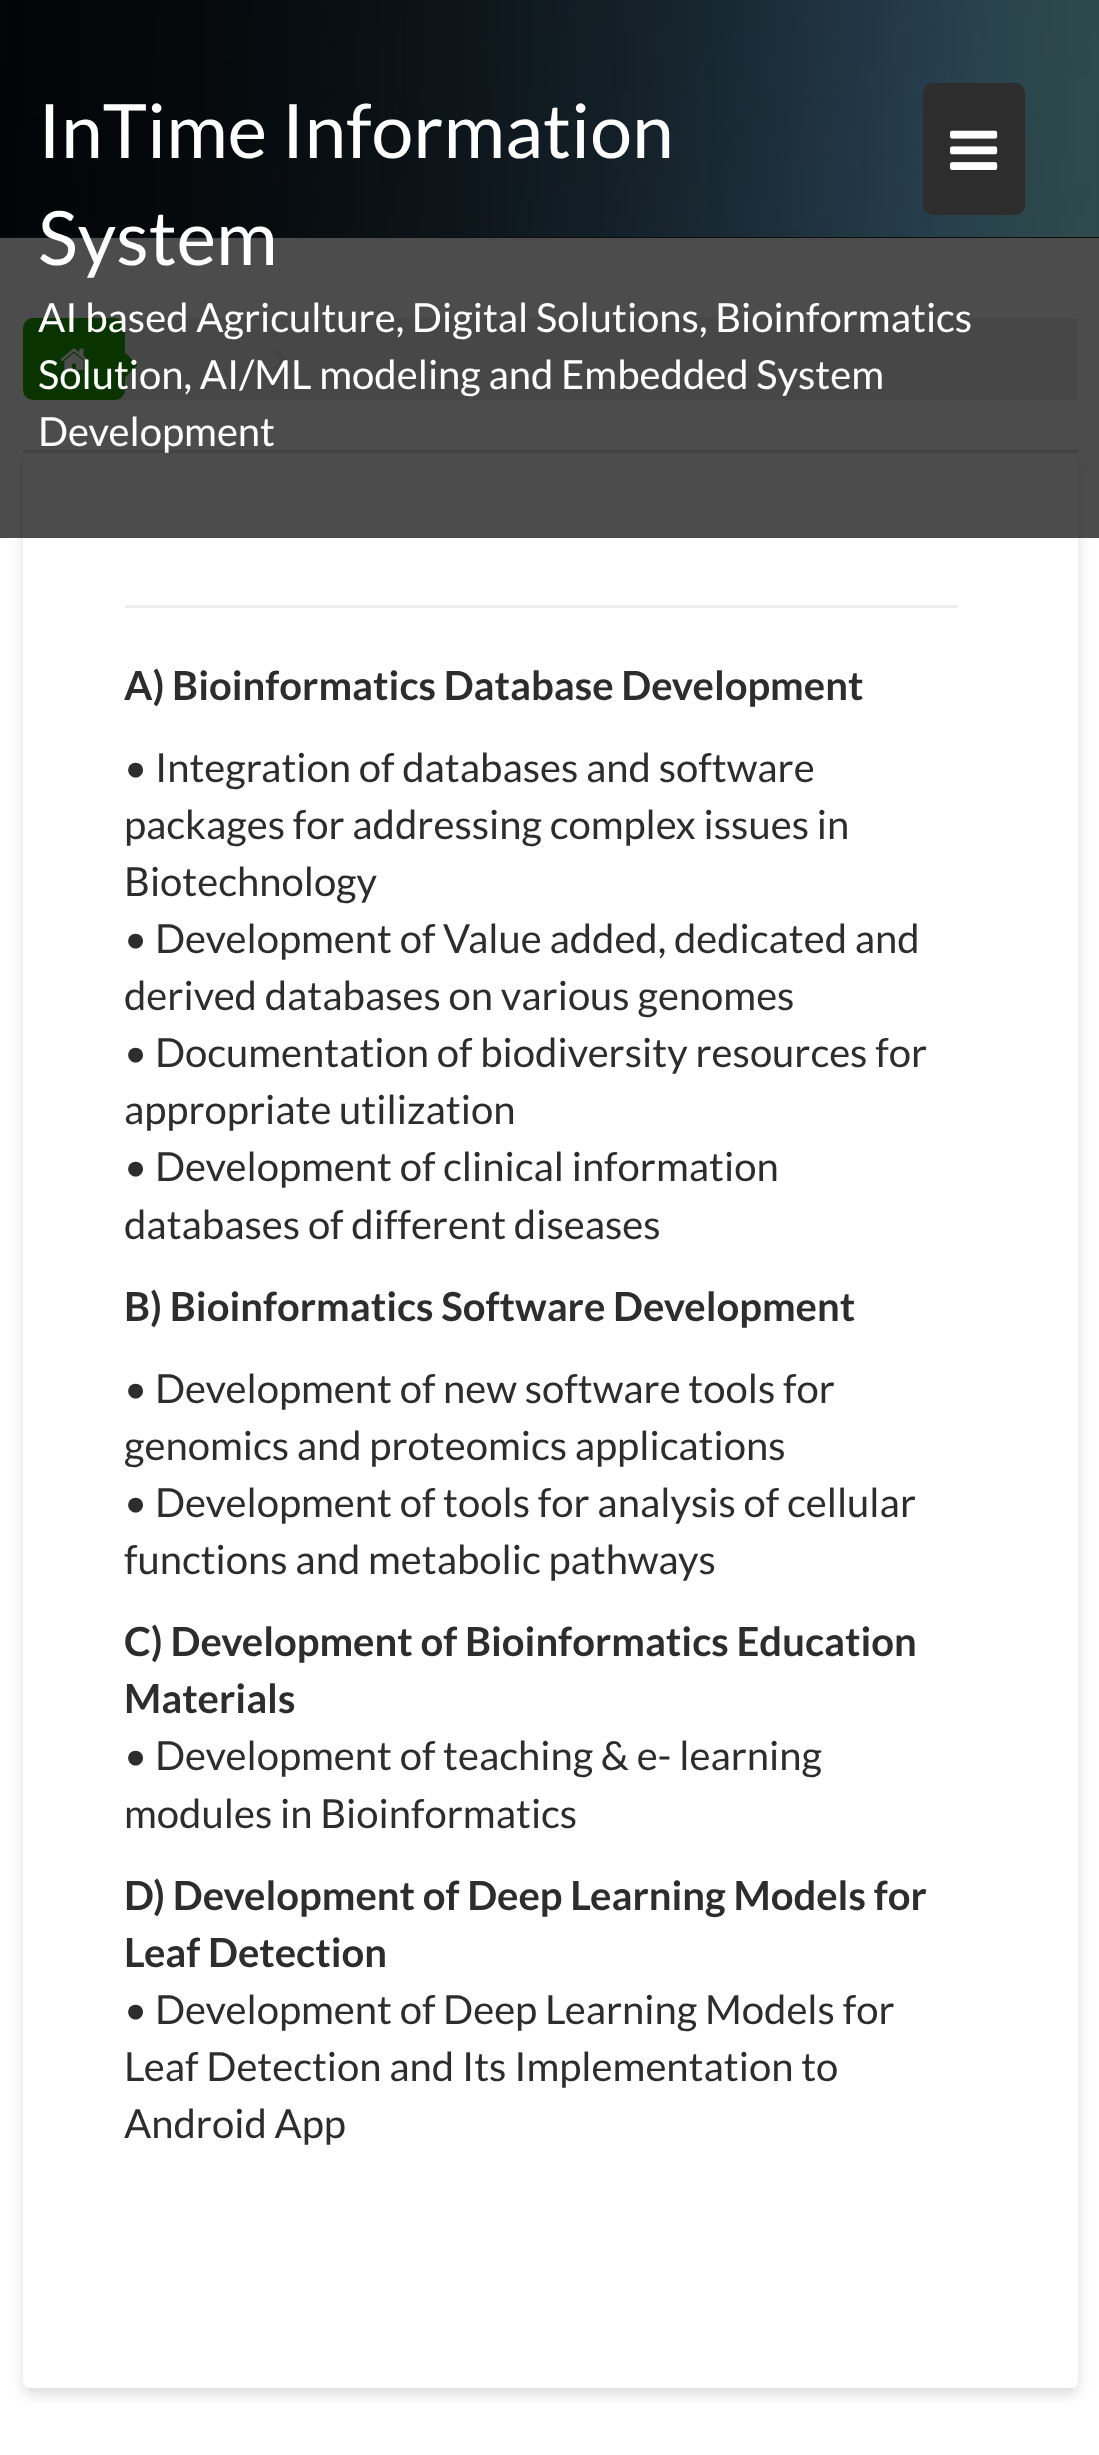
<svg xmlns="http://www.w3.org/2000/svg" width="1099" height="2455">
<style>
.a{font:75px Lato;fill:#fff}
.b{font:40px Lato;fill:#fff}
.c{font:bold 40px Lato;fill:#2d2d2d}
.d{font:40px Lato;fill:#2d2d2d}
</style>
<rect width="100%" height="100%" fill="#fff"/>
<path fill="#2d2d2d" d="M0 0h1099v238H0z"/>
<image href="1.png" x="0" y="0" width="1099" height="237"/>
<path fill="#eeeeef" d="M118 318h960v82H118z"/>
<rect fill="#20af00" x="23" y="318" width="102" height="82" rx="10"/>
<image href="3.png" x="60" y="348" width="28" height="22"/>
<path fill="#20af00" d="M125 377.5v-25l12.5 12.5z"/>
<image href="4.png" x="273" y="348" width="13" height="23"/>
<rect fill="#00000021" filter="blur(7px)" x="23" y="455" width="1055" height="1940" rx="10"/>
<rect fill="#fff" x="23" y="450" width="1055" height="1940" rx="10"/>
<path fill="#ddd" d="M23 450h1055v3H23z"/>
<path fill="#000000b3" d="M0 0h1099v538H0z"/>
<rect fill="#2d2d2d" x="923" y="83" width="102" height="132" rx="10"/>
<image href="2.png" x="950" y="130" width="48" height="40"/>
<path fill="#e5e5e5" d="M28 2388h1045v3H28z"/>
<path fill="#eee" d="M125 605h833v3H125z"/>
<text class="a" x="38" y="158">InTime Information</text>
<text class="a" x="38" y="265">System</text>
<text class="b" x="38" y="332">AI based Agriculture, Digital Solutions, Bioinformatics</text>
<text class="b" x="38" y="389">Solution, AI/ML modeling and Embedded System</text>
<text class="b" x="38" y="446">Development</text>
<text class="c" x="124" y="700">A) Bioinformatics Database Development</text>
<text class="d" x="124" y="782">• Integration of databases and software</text>
<text class="d" x="124" y="839">packages for addressing complex issues in</text>
<text class="d" x="124" y="896">Biotechnology</text>
<text class="d" x="124" y="953">• Development of Value added, dedicated and</text>
<text class="d" x="124" y="1010">derived databases on various genomes</text>
<text class="d" x="124" y="1067">• Documentation of biodiversity resources for</text>
<text class="d" x="124" y="1124">appropriate utilization</text>
<text class="d" x="124" y="1181">• Development of clinical information</text>
<text class="d" x="124" y="1239">databases of different diseases</text>
<text class="c" x="124" y="1321">B) Bioinformatics Software Development</text>
<text class="d" x="124" y="1403">• Development of new software tools for</text>
<text class="d" x="124" y="1460">genomics and proteomics applications</text>
<text class="d" x="124" y="1517">• Development of tools for analysis of cellular</text>
<text class="d" x="124" y="1574">functions and metabolic pathways</text>
<text class="c" x="124" y="1656">C) Development of Bioinformatics Education</text>
<text class="c" x="124" y="1713">Materials</text>
<text class="d" x="124" y="1770">• Development of teaching &amp; e- learning</text>
<text class="d" x="124" y="1828">modules in Bioinformatics</text>
<text class="c" x="124" y="1910">D) Development of Deep Learning Models for</text>
<text class="c" x="124" y="1967">Leaf Detection</text>
<text class="d" x="124" y="2024">• Development of Deep Learning Models for</text>
<text class="d" x="124" y="2081">Leaf Detection and Its Implementation to</text>
<text class="d" x="124" y="2138">Android App</text>
</svg>
